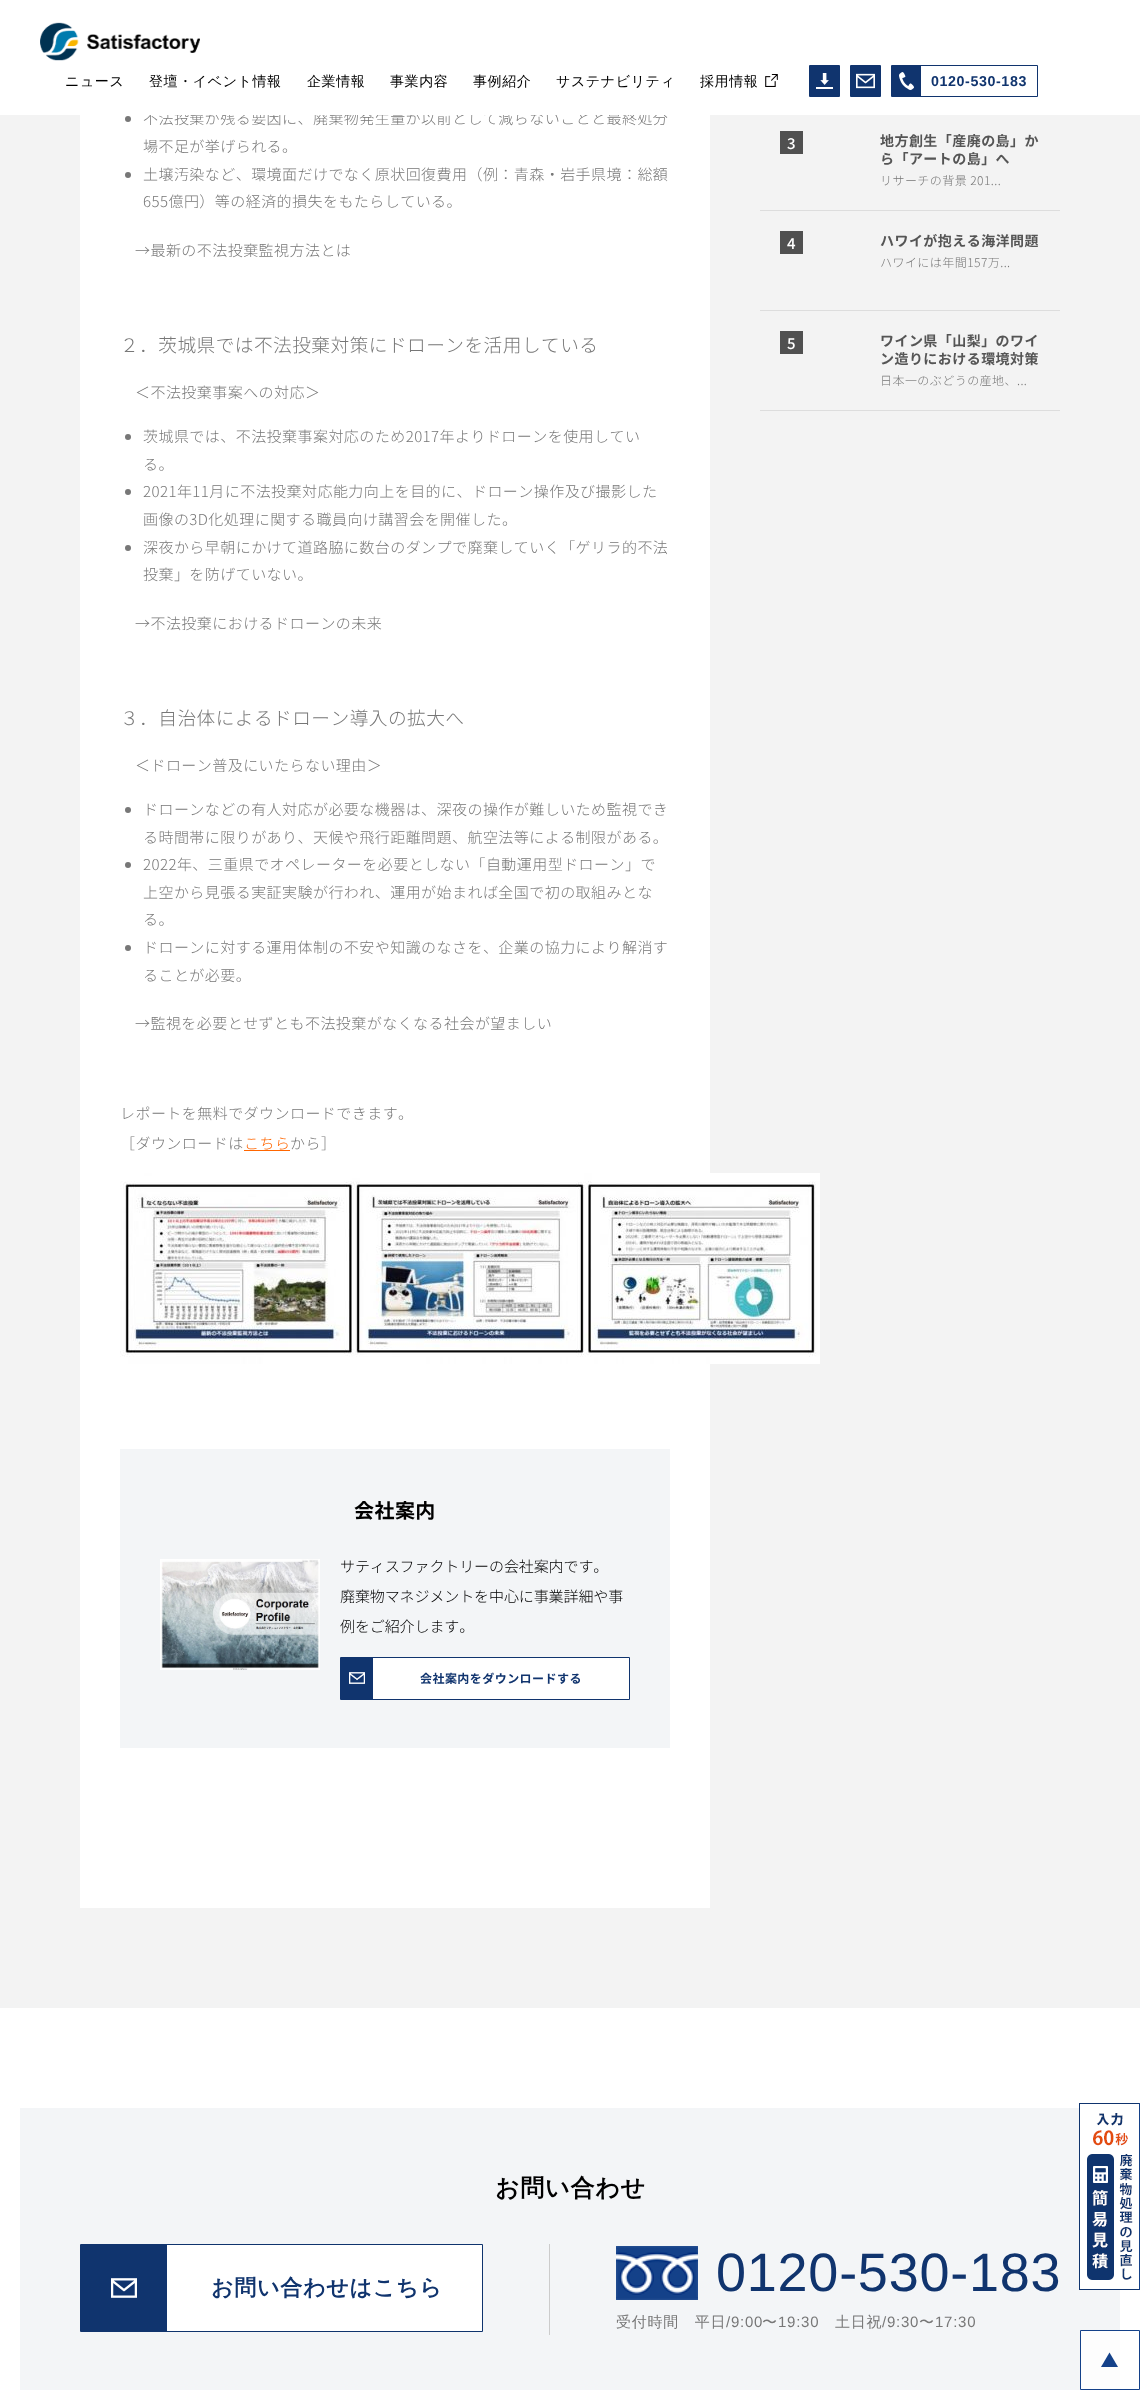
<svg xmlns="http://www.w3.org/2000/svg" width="1140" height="2390">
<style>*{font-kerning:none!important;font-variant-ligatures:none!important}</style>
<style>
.a{font:300 15px Noto Sans JP;letter-spacing:0.45px;fill:#777}
.b{font:500 14px WenQuanYi Zen Hei;letter-spacing:0.6px;fill:#000}
.c{font:bold 14.25px Liberation Sans;letter-spacing:0.6px;fill:#10346e}
.d{font:300 18.7px Noto Sans JP;letter-spacing:0.45px;fill:#777}
.e{font:300 15px Noto Sans JP;letter-spacing:0.45px;fill:#f60}
.f{font:bold 20px Noto Sans JP;letter-spacing:0.45px;fill:#000}
.g{font:300 15px Noto Sans JP;letter-spacing:-0.1px;fill:#000}
.h{font:bold 12px Noto Sans JP;letter-spacing:0.45px;fill:#10346e}
.i{font:500 15px Noto Sans JP;letter-spacing:0.45px;fill:#fff}
.j{font:bold 14px Noto Sans JP;letter-spacing:0.45px;fill:#555}
.k{font:300 12px Noto Sans JP;letter-spacing:0.45px;fill:#777}
.l{font:bold 24px WenQuanYi Zen Hei;letter-spacing:0.75px;fill:#000}
.m{font:bold 22px WenQuanYi Zen Hei;letter-spacing:0.75px;fill:#10346e}
.n{font:54px Liberation Sans;letter-spacing:0.75px;fill:#10346e}
.o{font:500 15px WenQuanYi Zen Hei;letter-spacing:0.75px;fill:#777}
.p{font:15px Liberation Sans;letter-spacing:0.75px;fill:#777}
</style>
<rect width="100%" height="100%" fill="#f3f3f3"/>
<path fill="#fff" d="M80 115h630v1793H80z"/>
<circle fill="#777" cx="128" cy="119" r="3"/>
<circle fill="#777" cx="128" cy="175" r="3"/>
<circle fill="#777" cx="128" cy="437" r="3"/>
<circle fill="#777" cx="128" cy="492" r="3"/>
<circle fill="#777" cx="128" cy="548" r="3"/>
<circle fill="#777" cx="128" cy="810" r="3"/>
<circle fill="#777" cx="128" cy="865" r="3"/>
<circle fill="#777" cx="128" cy="948" r="3"/>
<path fill="#f60" d="M244 1150h46v1H244z"/>
<image href="6.png" x="120" y="1173" width="700" height="191"/>
<path fill="#f3f5f7" d="M120 1449h550v299H120z"/>
<image href="7.png" x="160" y="1559" width="160" height="111"/>
<path fill="#fff" d="M373 1658h256v41H373z"/>
<path fill="none" stroke="#10346e" d="M340.5 1657.5h289v42H340.5z"/>
<path fill="#10346e" d="M341 1658h32v41H341z"/>
<image href="8.png" x="349" y="1672" width="16" height="12"/>
<path fill="#ddd" d="M760 210h300v1H760z"/>
<path fill="#505050" d="M780 131h23v23H780z"/>
<path fill="#ddd" d="M760 310h300v1H760z"/>
<path fill="#505050" d="M780 231h23v23H780z"/>
<path fill="#ddd" d="M760 410h300v1H760z"/>
<path fill="#505050" d="M780 331h23v23H780z"/>
<path fill="#fff" d="M0 2008h1140v382H0z"/>
<path fill="#f3f5f7" d="M20 2108h1100v282H20z"/>
<path fill="#fdfdfd" d="M1081 2331h39v58H1081z"/>
<path fill="#fff" d="M167 2245h315v86H167z"/>
<path fill="none" stroke="#10346e" d="M80.5 2244.5h402v87H80.5z"/>
<path fill="#10346e" d="M81 2245h86v86H81z"/>
<image href="9.png" x="111" y="2278" width="26" height="20"/>
<path fill="#ccc" d="M549 2244h1v91H549z"/>
<image href="10.png" x="616" y="2246" width="82" height="54"/>
<path fill="#144189" d="M1139 2103h1v187H1139z"/>
<image href="11.png" x="1079" y="2103" width="60" height="187"/>
<path fill="none" stroke="#144189" d="M1080.5 2330.5h59v59H1080.5z"/>
<path fill="#144189" d="M1101 2367l8.5-14.5l8.5 14.5z"/>
<text class="a" x="143" y="124">不法投棄が残る要因に、廃棄物発生量が以前として減らないことと最終処分</text>
<path fill="#fff" d="M0 0h1140v115H0z"/>
<text class="b" x="700" y="86">採用情報</text>
<image href="2.png" x="765" y="74" width="13" height="13"/>
<text class="b" x="556" y="86">サステナビリティ</text>
<text class="b" x="473" y="86">事例紹介</text>
<text class="b" x="390" y="86">事業内容</text>
<text class="b" x="307" y="86">企業情報</text>
<text class="b" x="149" y="86">登壇・イベント情報</text>
<text class="b" x="65" y="86">ニュース</text>
<path fill="none" stroke="#10346e" d="M891.5 65.5h146v31H891.5z"/>
<text class="c" x="931" y="86">0120-530-183</text>
<path fill="#10346e" d="M892 66h29v30H892z"/>
<image href="5.png" x="899" y="72" width="15" height="18"/>
<path fill="none" stroke="#10346e" d="M850.5 65.5h30v31H850.5z"/>
<path fill="#10346e" d="M851 66h29v30H851z"/>
<image href="4.png" x="856" y="73" width="19" height="16"/>
<path fill="none" stroke="#10346e" d="M809.5 65.5h30v31H809.5z"/>
<path fill="#10346e" d="M810 66h29v30H810z"/>
<image href="3.png" x="816" y="73" width="17" height="16"/>
<image href="1.png" x="40" y="22" width="160" height="39"/>
<text class="a" x="143" y="152">場不足が挙げられる。</text>
<text class="a" x="143" y="180">土壌汚染など、環境面だけでなく原状回復費用（例：青森・岩手県境：総額</text>
<text class="a" x="143" y="207">655億円）等の経済的損失をもたらしている。</text>
<text class="a" x="135" y="256">→最新の不法投棄監視方法とは</text>
<text class="d" x="120" y="352">２．茨城県では不法投棄対策にドローンを活用している</text>
<text class="a" x="135" y="398">＜不法投棄事案への対応＞</text>
<text class="a" x="143" y="442">茨城県では、不法投棄事案対応のため2017年よりドローンを使用してい</text>
<text class="a" x="143" y="470">る。</text>
<text class="a" x="143" y="497">2021年11月に不法投棄対応能力向上を目的に、ドローン操作及び撮影した</text>
<text class="a" x="143" y="525">画像の3D化処理に関する職員向け講習会を開催した。</text>
<text class="a" x="143" y="553">深夜から早朝にかけて道路脇に数台のダンプで廃棄していく「ゲリラ的不法</text>
<text class="a" x="143" y="580">投棄」を防げていない。</text>
<text class="a" x="135" y="629">→不法投棄におけるドローンの未来</text>
<text class="d" x="120" y="725">３．自治体によるドローン導入の拡大へ</text>
<text class="a" x="135" y="771">＜ドローン普及にいたらない理由＞</text>
<text class="a" x="143" y="815">ドローンなどの有人対応が必要な機器は、深夜の操作が難しいため監視でき</text>
<text class="a" x="143" y="843">る時間帯に限りがあり、天候や飛行距離問題、航空法等による制限がある。</text>
<text class="a" x="143" y="870">2022年、三重県でオペレーターを必要としない「自動運用型ドローン」で</text>
<text class="a" x="143" y="898">上空から見張る実証実験が行われ、運用が始まれば全国で初の取組みとな</text>
<text class="a" x="143" y="925">る。</text>
<text class="a" x="143" y="953">ドローンに対する運用体制の不安や知識のなさを、企業の協力により解消す</text>
<text class="a" x="143" y="981">ることが必要。</text>
<text class="a" x="135" y="1029">→監視を必要とせずとも不法投棄がなくなる社会が望ましい</text>
<text class="a" x="120" y="1119">レポートを無料でダウンロードできます。</text>
<text class="a" x="120" y="1149">［ダウンロードは</text>
<text class="e" x="244" y="1149">こちら</text>
<text class="a" x="290" y="1149">から］</text>
<text class="f" x="354" y="1518">会社案内</text>
<text class="g" x="340" y="1572">サティスファクトリーの会社案内です。</text>
<text class="g" x="340" y="1602">廃棄物マネジメントを中心に事業詳細や事</text>
<text class="g" x="340" y="1632">例をご紹介します。</text>
<text class="h" x="420" y="1683">会社案内をダウンロードする</text>
<text class="i" x="787" y="149">3</text>
<text class="j" x="880" y="146">地方創生「産廃の島」か</text>
<text class="j" x="880" y="164">ら「アートの島」へ</text>
<text class="k" x="880" y="185">リサーチの背景 201...</text>
<text class="i" x="787" y="249">4</text>
<text class="j" x="880" y="246">ハワイが抱える海洋問題</text>
<text class="k" x="880" y="267">ハワイには年間157万...</text>
<text class="i" x="787" y="349">5</text>
<text class="j" x="880" y="346">ワイン県「山梨」のワイ</text>
<text class="j" x="880" y="364">ン造りにおける環境対策</text>
<text class="k" x="880" y="385">日本一のぶどうの産地、...</text>
<text class="l" x="495" y="2196">お問い合わせ</text>
<text class="m" x="211" y="2295">お問い合わせはこちら</text>
<text class="n" x="716" y="2291">0120-530-183</text>
<text class="o" x="616" y="2327">受付時間　平日</text>
<text class="p" x="726" y="2327">/9:00</text>
<text class="o" x="762" y="2327">〜</text>
<text class="p" x="778" y="2327">19:30</text>
<text class="o" x="835" y="2327">土日祝</text>
<text class="p" x="882" y="2327">/9:30</text>
<text class="o" x="919" y="2327">〜</text>
<text class="p" x="935" y="2327">17:30</text>
</svg>
